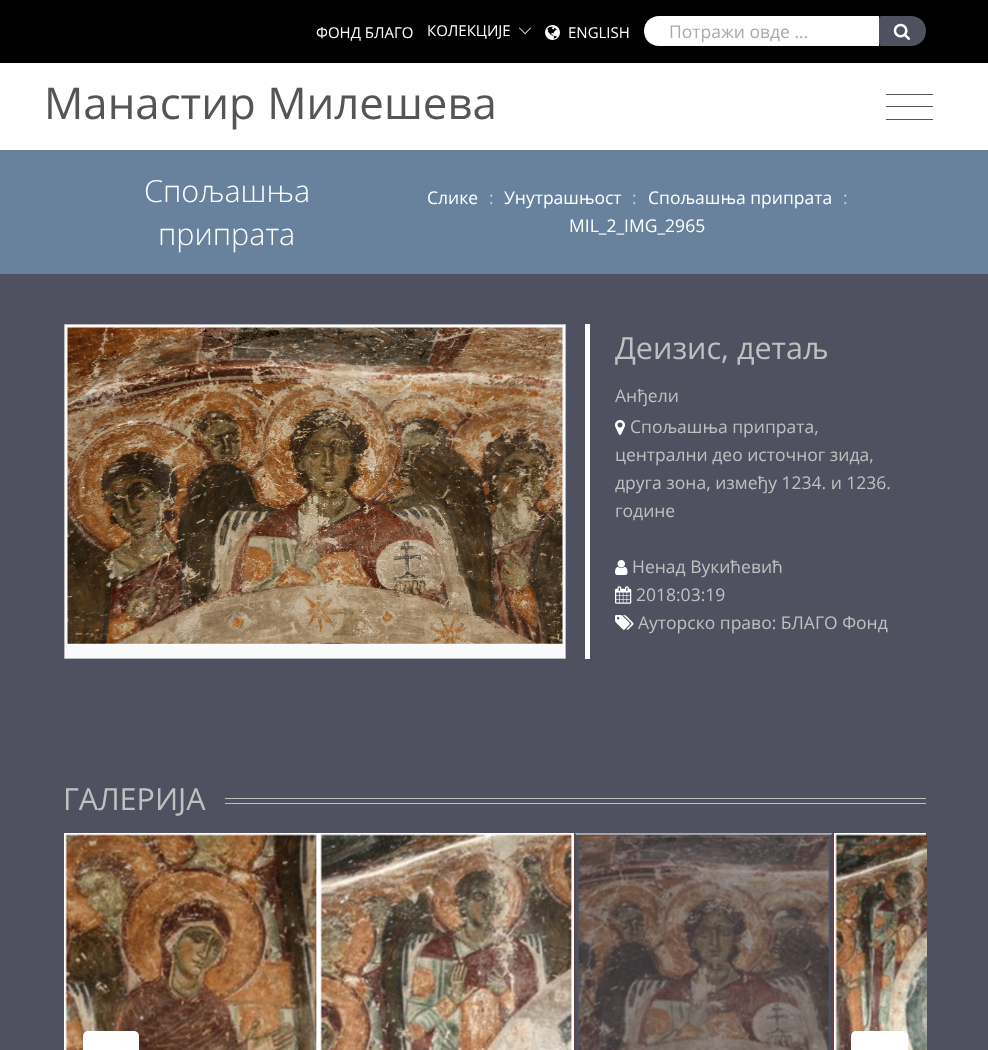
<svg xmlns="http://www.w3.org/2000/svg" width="988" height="1050">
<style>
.a{font:15px Open Sans;fill:#fff}
.b{font:17.5px Open Sans;fill:#aaa}
.c{font:43.75px Open Sans;fill:#555}
.d{font:300 30.5px Open Sans;fill:#fff}
.e{font:17.5px Open Sans;fill:#fff}
.f{font:17.5px Open Sans;fill:#ccc}
.g{font:30.5px Open Sans;fill:#c0c0c0}
.h{font:17.5px Open Sans;fill:#c0c0c0}
</style>
<defs>
<clipPath id="clip1"><path d="M64 833h862v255H64z"/></clipPath>
</defs>
<rect width="100%" height="100%" fill="#fff"/>
<path fill="#000" d="M0 0h988v63H0z"/>
<image href="1.png" x="519" y="27" width="12" height="7"/>
<image href="2.png" x="545" y="25" width="15" height="15"/>
<path fill="#fff" d="M659 16h220v30h-220c-8.5 0-15-6.5-15-15c0-8.5 6.5-15 15-15z"/>
<path fill="#505160" d="M881.5 16h29.5c8.5 0 15 6.5 15 15c0 8.5-6.5 15-15 15h-29.5c-1.5 0-2.5-1-2.5-2.5v-25c0-1.5 1-2.5 2.5-2.5z"/>
<image href="3.png" x="893" y="23" width="17" height="17"/>
<path fill="#555" d="M886 94h47v1H886z"/>
<path fill="#555" d="M886 106h47v1H886z"/>
<path fill="#555" d="M886 119h47v1H886z"/>
<path fill="#68829e" d="M0 150h988v124H0z"/>
<path fill="#505160" d="M0 274h988v776H0z"/>
<path fill="#fafafa" stroke="#bbb" d="M64.5 324.5h501v334H64.5z"/>
<image href="4.png" x="67" y="327" width="496" height="317"/>
<path fill="#fff" d="M585 324h5v335H585z"/>
<image href="5.png" x="615" y="420" width="10" height="15"/>
<image href="6.png" x="615" y="560" width="13" height="15"/>
<image href="7.png" x="615" y="586" width="17" height="18"/>
<image href="8.png" x="615" y="615" width="19" height="15"/>
<path fill="#c0c0c0" d="M225 798h701v1H225z"/>
<path fill="#c0c0c0" d="M225 803h701v1H225z"/>
<path fill="none" stroke="#fff" stroke-width="3" d="M65.5 834.5h252v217H65.5z"/>
<image href="9.png" x="65" y="834" width="252" height="216"/>
<path fill="none" stroke="#fff" stroke-width="3" d="M320.5 834.5h252v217H320.5z"/>
<image href="10.png" x="320" y="834" width="252" height="216"/>
<g clip-path="url(#clip1)">
<path fill="#a8a8b0" d="M574 832h260l-3 3h-255z"/>
</g>
<path fill="#64424a" d="M834 832v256l-3-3v-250z"/>
<path fill="#64424a" d="M574 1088v-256l2 3v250z"/>
<image href="11.png" x="578" y="834" width="252" height="216"/>
<g clip-path="url(#clip1)">
<path fill="none" stroke="#fff" stroke-width="3" d="M835.5 834.5h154v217H835.5z"/>
</g>
<image href="12.png" x="835" y="834" width="92" height="216"/>
<rect fill="#fff" x="83" y="1031" width="56" height="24" rx="5"/>
<rect fill="#fff" x="851" y="1031" width="57" height="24" rx="5"/>
<text class="a" x="316" y="38">ФОНД БЛАГО</text>
<text class="a" x="427" y="36">КОЛЕКЦИЈЕ</text>
<text class="a" x="568" y="38">ENGLISH</text>
<text class="b" x="669" y="38">Потражи овде ...</text>
<text class="c" x="44" y="119">Манастир Милешева</text>
<text class="d" x="144" y="202">Спољашња</text>
<text class="d" x="158" y="245">припрата</text>
<text class="e" x="427" y="204">Слике</text>
<text class="f" x="489" y="204">:</text>
<text class="e" x="504" y="204">Унутрашњост</text>
<text class="f" x="632" y="204">:</text>
<text class="e" x="648" y="204">Спољашња припрата</text>
<text class="f" x="843" y="204">:</text>
<text class="e" x="569" y="232">MIL_2_IMG_2965</text>
<text class="g" x="615" y="359">Деизис, детаљ</text>
<text class="h" x="615" y="402">Анђели</text>
<text class="h" x="630" y="433">Спољашња припрата,</text>
<text class="h" x="615" y="461">централни део источног зида,</text>
<text class="h" x="615" y="489">друга зона, између 1234. и 1236.</text>
<text class="h" x="615" y="517">године</text>
<text class="h" x="632" y="573">Ненад Вукићевић</text>
<text class="h" x="636" y="601">2018:03:19</text>
<text class="h" x="638" y="629">Ауторско право: БЛАГО Фонд</text>
<text class="g" x="63" y="810">ГАЛЕРИЈА</text>
</svg>
